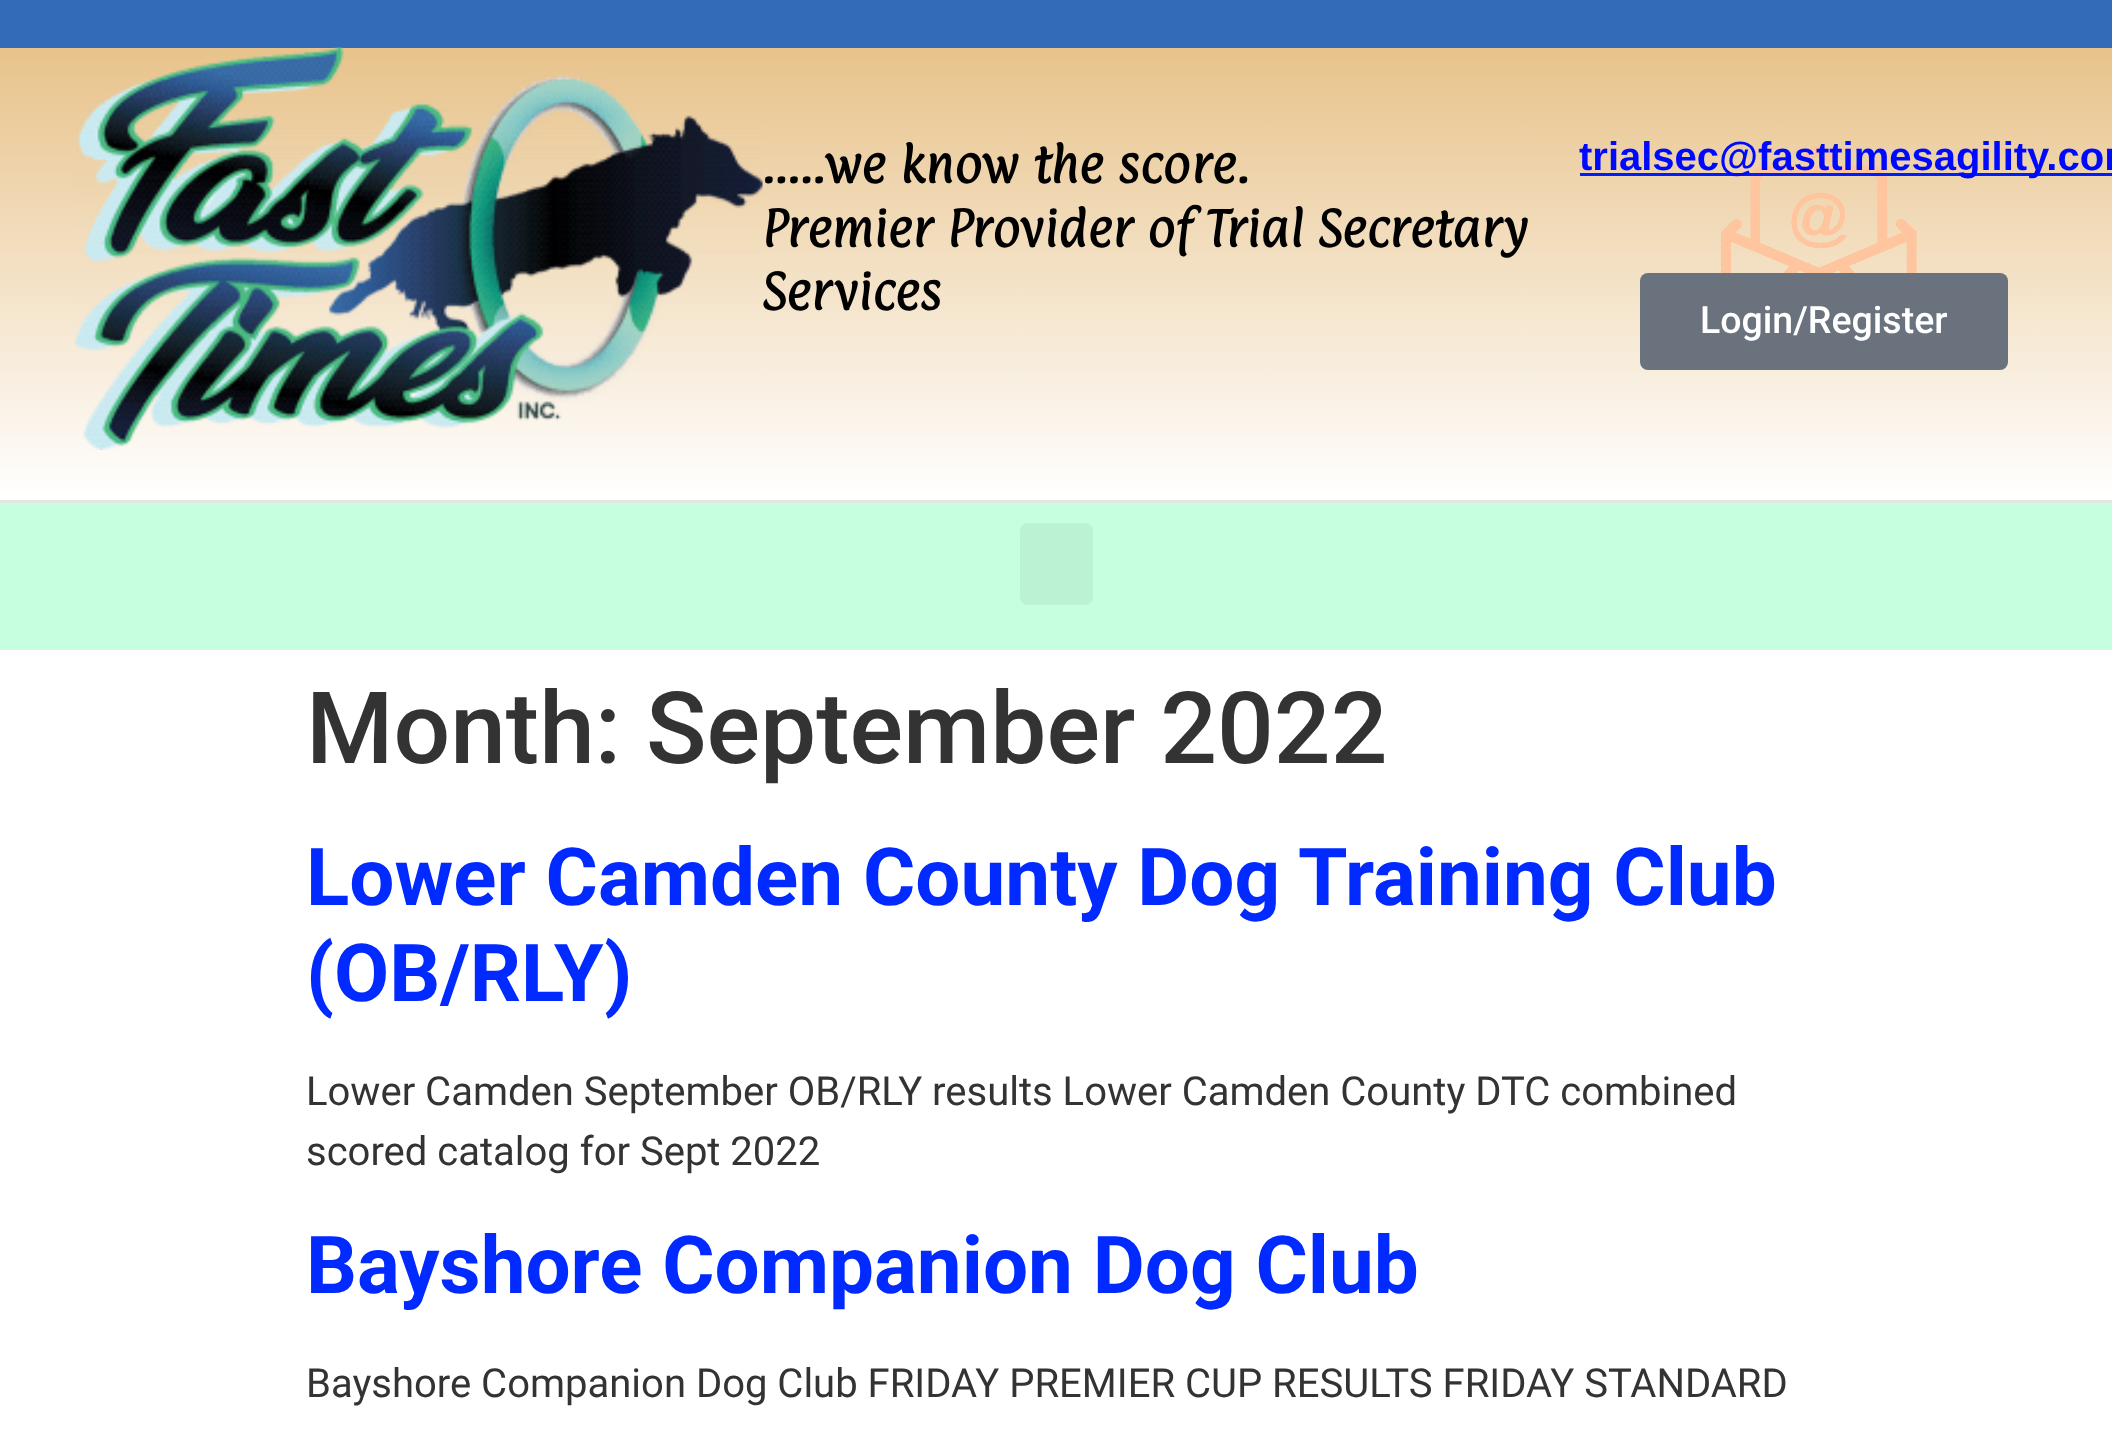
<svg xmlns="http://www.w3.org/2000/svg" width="2112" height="1434">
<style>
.a{font:bold 42.5px Paprika;fill:#000}
.b{font:bold 40px Liberation Sans;fill:#0009ff}
.c{font:500 37.5px Roboto;fill:#fff}
.d{font:500 100px Roboto;fill:#333}
.e{font:bold 80px Roboto;fill:#002aff}
.f{font:40px Roboto;fill:#333}
</style>
<defs>
<linearGradient id="g1" gradientUnits="userSpaceOnUse" x1="1056" y1="47" x2="1056" y2="500"><stop offset="0" stop-color="#e8c38b"/><stop offset="1" stop-color="#fff"/></linearGradient>
</defs>
<rect width="100%" height="100%" fill="#fff"/>
<path fill="#336bb8" d="M0 0h2112v48H0z"/>
<path fill="url(#g1)" d="M0 48h2112v442H0z"/>
<path fill="#e5e5e5" d="M0 500h2112v3H0z"/>
<image href="1.png" x="75" y="47" width="688" height="403"/>
<image href="2.png" x="1721" y="145" width="196" height="128"/>
<path fill="#001dff" d="M1580 173h532v3H1580z"/>
<rect fill="#69727d" x="1640" y="273" width="368" height="97" rx="8"/>
<path fill="#c5ffdf" d="M0 503h2112v147H0z"/>
<rect fill="#bbf2d4" x="1020" y="523" width="73" height="82" rx="8"/>
<text class="a" x="762" y="183">…..we know the score.</text>
<text class="a" x="762" y="247">Premier Provider of Trial Secretary</text>
<text class="a" x="762" y="310">Services</text>
<text class="b" x="1579" y="170">trialsec@fasttimesagility.com</text>
<text class="c" x="1700" y="333">Login/Register</text>
<text class="d" x="306" y="763">Month: September 2022</text>
<text class="e" x="306" y="905">Lower Camden County Dog Training Club</text>
<text class="e" x="306" y="1001">(OB/RLY)</text>
<text class="f" x="306" y="1105">Lower Camden September OB/RLY results Lower Camden County DTC combined</text>
<text class="f" x="306" y="1165">scored catalog for Sept 2022</text>
<text class="e" x="306" y="1293">Bayshore Companion Dog Club</text>
<text class="f" x="306" y="1397">Bayshore Companion Dog Club FRIDAY PREMIER CUP RESULTS FRIDAY STANDARD</text>
</svg>
